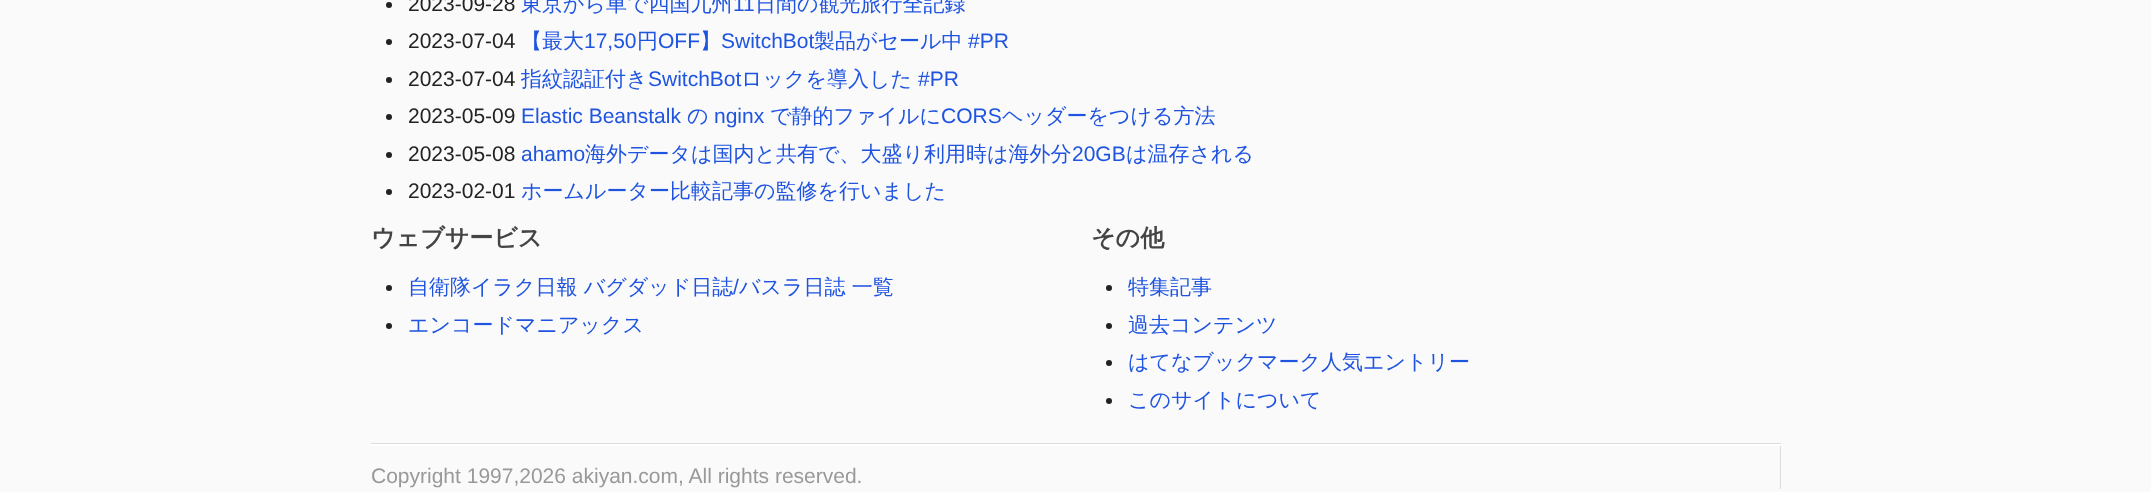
<svg xmlns="http://www.w3.org/2000/svg" width="2151" height="492">
<style>
.a{font:21px Liberation Sans;fill:#222}
.b{font:500 21px WenQuanYi Zen Hei;fill:#1f54e0}
.c{font:21px Liberation Sans;fill:#1f54e0}
.d{font:bold 24px WenQuanYi Zen Hei;fill:#444}
.e{font:21px Liberation Sans;fill:#999}
</style>
<rect width="100%" height="100%" fill="#fafafa"/>
<circle fill="#222" cx="389" cy="5" r="3"/>
<circle fill="#222" cx="389" cy="42" r="3"/>
<circle fill="#222" cx="389" cy="80" r="3"/>
<circle fill="#222" cx="389" cy="117" r="3"/>
<circle fill="#222" cx="389" cy="155" r="3"/>
<circle fill="#222" cx="389" cy="192" r="3"/>
<circle fill="#222" cx="389" cy="288" r="3"/>
<circle fill="#222" cx="389" cy="326" r="3"/>
<circle fill="#222" cx="1109" cy="288" r="3"/>
<circle fill="#222" cx="1109" cy="326" r="3"/>
<circle fill="#222" cx="1109" cy="363" r="3"/>
<circle fill="#222" cx="1109" cy="401" r="3"/>
<path fill="#ddd" d="M371 443v1h1409v45h1v-46z"/>
<path fill="#fff" d="M371 444h1410v2H371z"/>
<text class="a" x="408" y="11">2023-09-28</text>
<text class="b" x="521" y="11">東京から車で四国九州</text>
<text class="c" x="733" y="11">11</text>
<text class="b" x="755" y="11">日間の観光旅行全記録</text>
<text class="a" x="408" y="48">2023-07-04</text>
<text class="b" x="521" y="48">【最大</text>
<text class="c" x="584" y="48">17,50</text>
<text class="b" x="637" y="48">円</text>
<text class="c" x="658" y="48">OFF</text>
<text class="b" x="700" y="48">】</text>
<text class="c" x="721" y="48">SwitchBot</text>
<text class="b" x="814" y="48">製品がセール中</text>
<text class="c" x="968" y="48">#PR</text>
<text class="a" x="408" y="86">2023-07-04</text>
<text class="b" x="521" y="86">指紋認証付き</text>
<text class="c" x="648" y="86">SwitchBot</text>
<text class="b" x="741" y="86">ロックを導入した</text>
<text class="c" x="918" y="86">#PR</text>
<text class="a" x="408" y="123">2023-05-09</text>
<text class="c" x="521" y="123">Elastic Beanstalk</text>
<text class="b" x="687" y="123">の</text>
<text class="c" x="714" y="123">nginx</text>
<text class="b" x="770" y="123">で静的ファイルに</text>
<text class="c" x="941" y="123">CORS</text>
<text class="b" x="1002" y="123">ヘッダーをつける方法</text>
<text class="a" x="408" y="161">2023-05-08</text>
<text class="c" x="521" y="161">ahamo</text>
<text class="b" x="585" y="161">海外データは国内と共有で、大盛り利用時は海外分</text>
<text class="c" x="1072" y="161">20GB</text>
<text class="b" x="1126" y="161">は温存される</text>
<text class="a" x="408" y="198">2023-02-01</text>
<text class="b" x="521" y="198">ホームルーター比較記事の監修を行いました</text>
<text class="d" x="371" y="246">ウェブサービス</text>
<text class="b" x="408" y="294">自衛隊イラク日報 バグダッド日誌</text>
<text class="c" x="733" y="294">/</text>
<text class="b" x="739" y="294">バスラ日誌 一覧</text>
<text class="b" x="408" y="332">エンコードマニアックス</text>
<text class="d" x="1091" y="246">その他</text>
<text class="b" x="1128" y="294">特集記事</text>
<text class="b" x="1128" y="332">過去コンテンツ</text>
<text class="b" x="1128" y="369">はてなブックマーク人気エントリー</text>
<text class="b" x="1128" y="407">このサイトについて</text>
<text class="e" x="371" y="483">Copyright 1997,2026 akiyan.com, All rights reserved.</text>
</svg>
